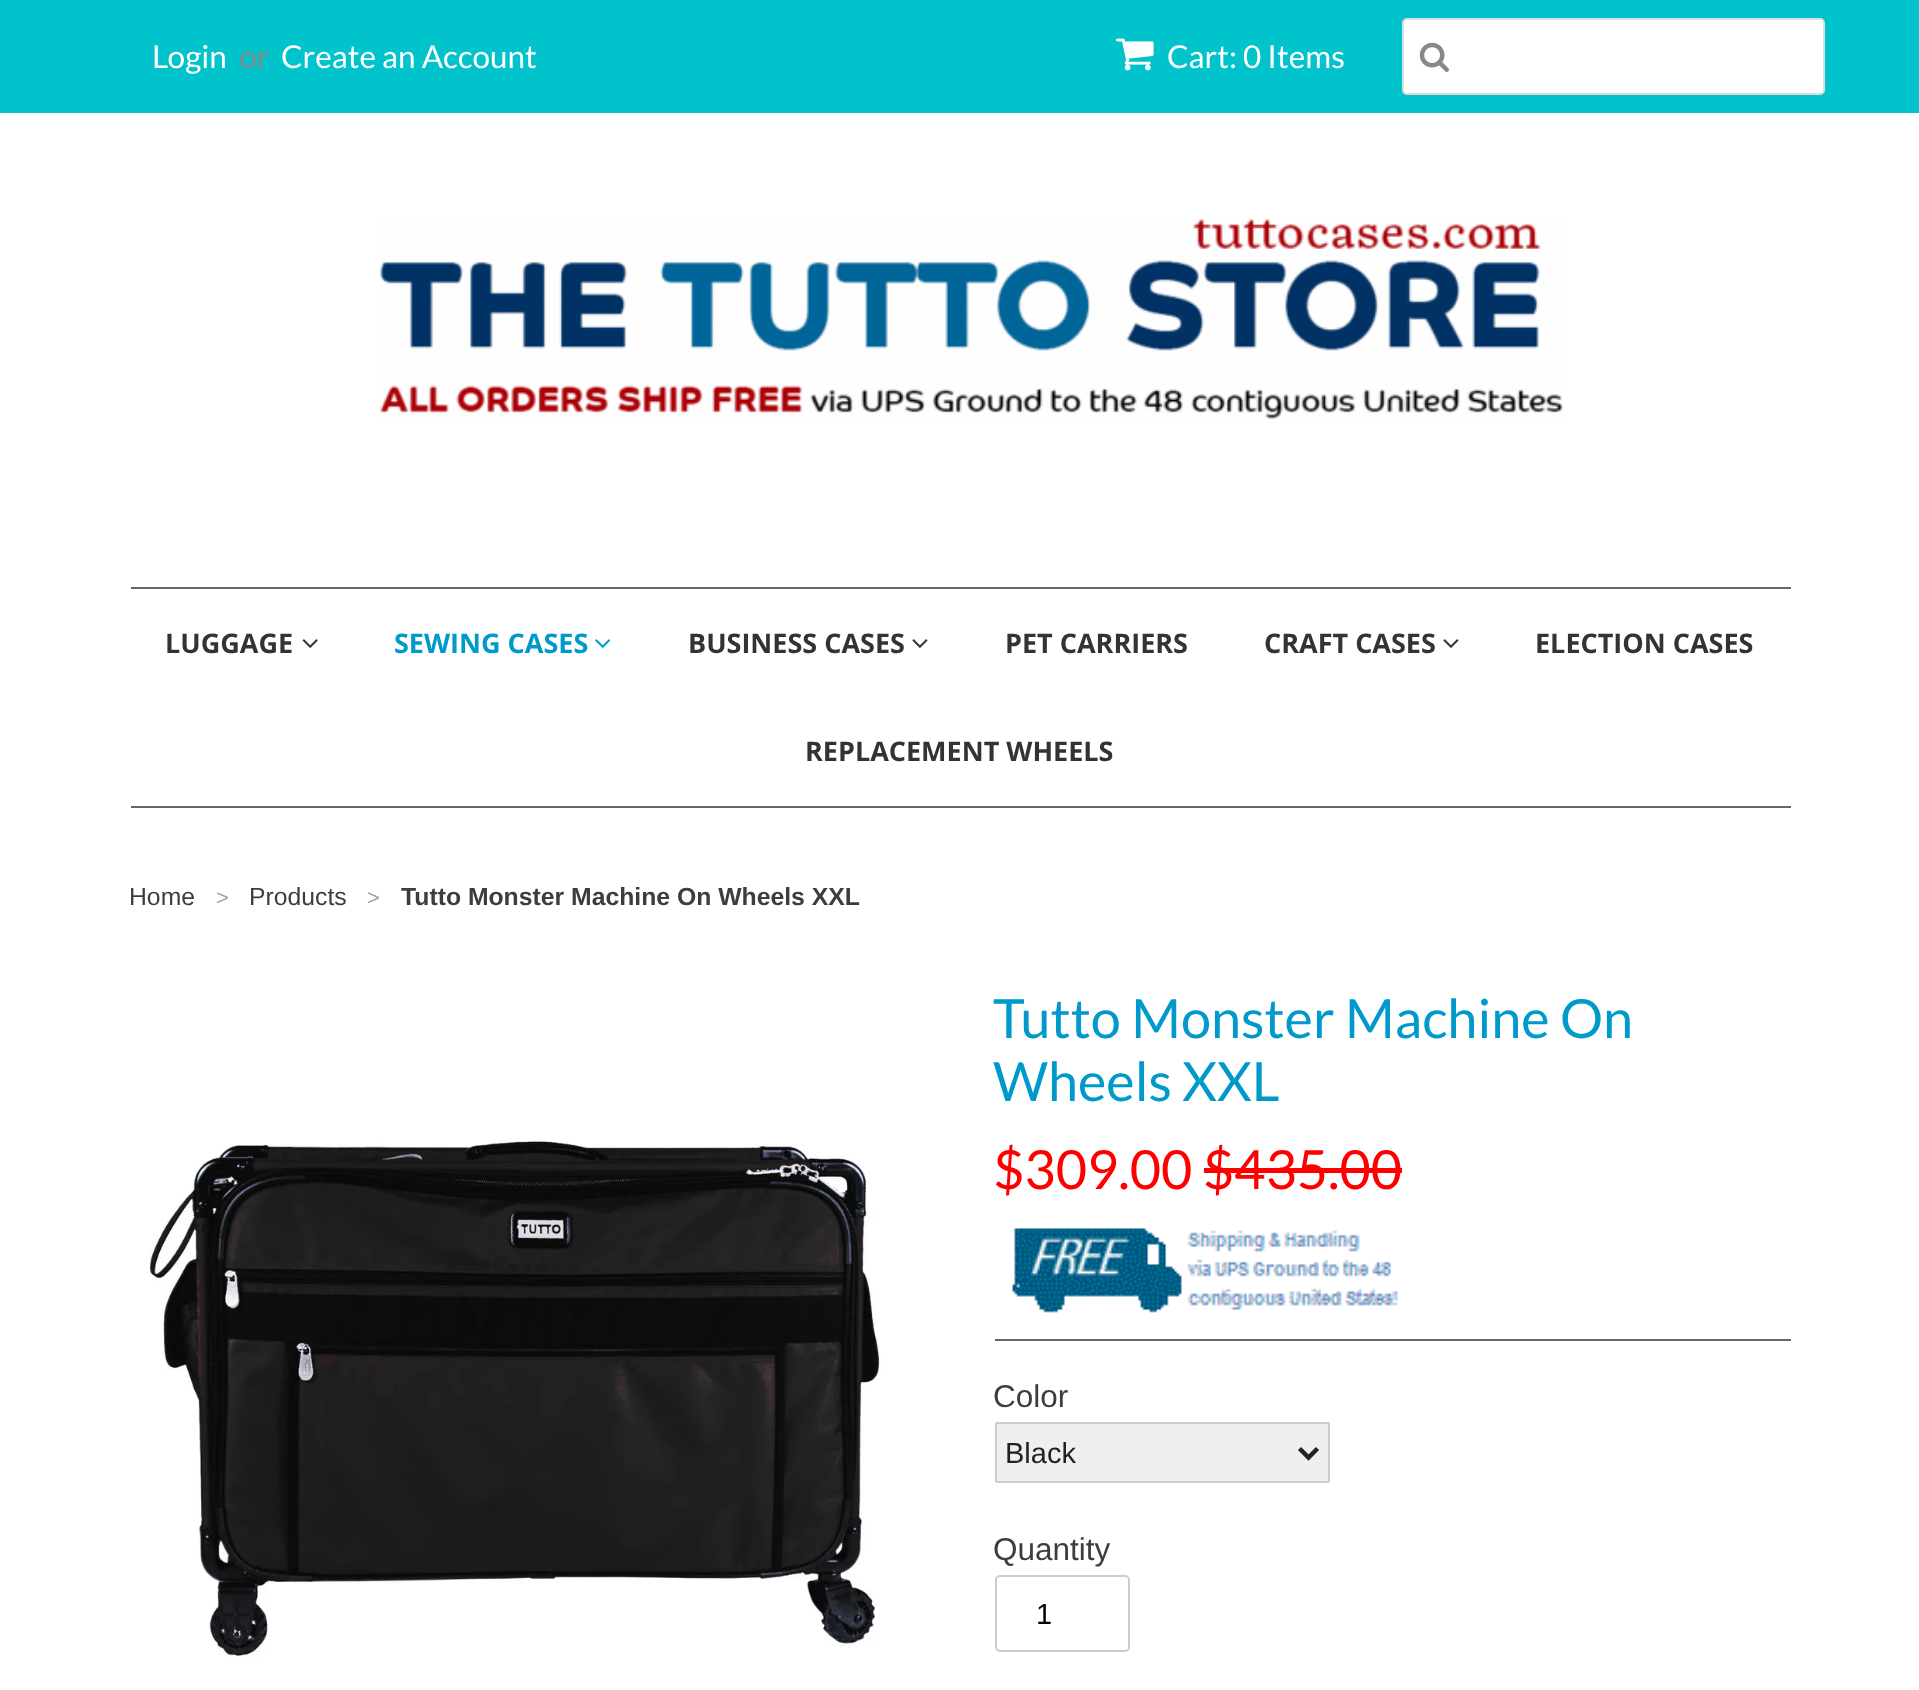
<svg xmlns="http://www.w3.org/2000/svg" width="1919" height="1690">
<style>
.a{font:31.5px Lato;fill:#fff}
.b{font:31.5px Lato;fill:#888}
.c{font:bold 27px Open Sans;fill:#333}
.d{font:bold 27px Open Sans;fill:#09c}
.e{font:24.75px Liberation Sans;fill:#3e3d3d}
.f{font:22px Liberation Sans;fill:#9f9e9e}
.g{font:bold 24.75px Liberation Sans;fill:#3e3d3d}
.h{font:54px Lato;fill:#09c}
.i{font:54px Lato;fill:#f00}
.j{font:31.5px Liberation Sans;fill:#3e3d3d}
.k{font:29px Liberation Sans;fill:#222}
.l{font:29px Liberation Sans;fill:#000}
</style>
<rect width="100%" height="100%" fill="#fff"/>
<path fill="#00c3cc" d="M0 0h1919v113H0z"/>
<image href="1.png" x="1116" y="38" width="38" height="33"/>
<rect fill="#fff" stroke="#ddd" stroke-width="2" x="1403" y="19" width="421" height="75" rx="4"/>
<image href="2.png" x="1419" y="42" width="30" height="30"/>
<image href="3.png" x="379" y="219" width="1184" height="200"/>
<path fill="#666" d="M131 587h1660v2H131z"/>
<path fill="#666" d="M131 806h1660v2H131z"/>
<image href="4.png" x="302" y="639" width="16" height="9"/>
<image href="5.png" x="595" y="639" width="16" height="9"/>
<image href="6.png" x="912" y="639" width="16" height="9"/>
<image href="6.png" x="1443" y="639" width="16" height="9"/>
<image href="7.png" x="149" y="1141" width="732" height="517"/>
<path fill="#f00" d="M1204 1168h198v5H1204z"/>
<image href="8.png" x="1012" y="1228" width="386" height="85"/>
<path fill="#666" d="M995 1339h796v2H995z"/>
<rect fill="#efefef" stroke="#ccc" stroke-width="2" x="996" y="1423" width="333" height="59" rx="1"/>
<path fill="none" stroke="#222" stroke-width="4.5" d="M1299.5 1448.5l9 9l9-9"/>
<rect fill="none" stroke="#ccc" stroke-width="2" x="996" y="1576" width="133" height="75" rx="4"/>
<text class="a" x="152" y="68">Login</text>
<text class="b" x="239" y="68">or</text>
<text class="a" x="281" y="68">Create an Account</text>
<text class="a" x="1167" y="68">Cart: 0 Items</text>
<text class="c" x="165" y="653">LUGGAGE</text>
<text class="d" x="394" y="653">SEWING CASES</text>
<text class="c" x="688" y="653">BUSINESS CASES</text>
<text class="c" x="1005" y="653">PET CARRIERS</text>
<text class="c" x="1264" y="653">CRAFT CASES</text>
<text class="c" x="1535" y="653">ELECTION CASES</text>
<text class="c" x="805" y="761">REPLACEMENT WHEELS</text>
<text class="e" x="129" y="905">Home</text>
<text class="f" x="216" y="905">&gt;</text>
<text class="e" x="249" y="905">Products</text>
<text class="f" x="367" y="905">&gt;</text>
<text class="g" x="401" y="905">Tutto Monster Machine On Wheels XXL</text>
<text class="h" x="993" y="1038">Tutto Monster Machine On</text>
<text class="h" x="993" y="1101">Wheels XXL</text>
<text class="i" x="993" y="1189">$309.00 $435.00</text>
<text class="j" x="993" y="1407">Color</text>
<text class="k" x="1005" y="1463">Black</text>
<text class="j" x="993" y="1560">Quantity</text>
<text class="l" x="1036" y="1624">1</text>
</svg>
